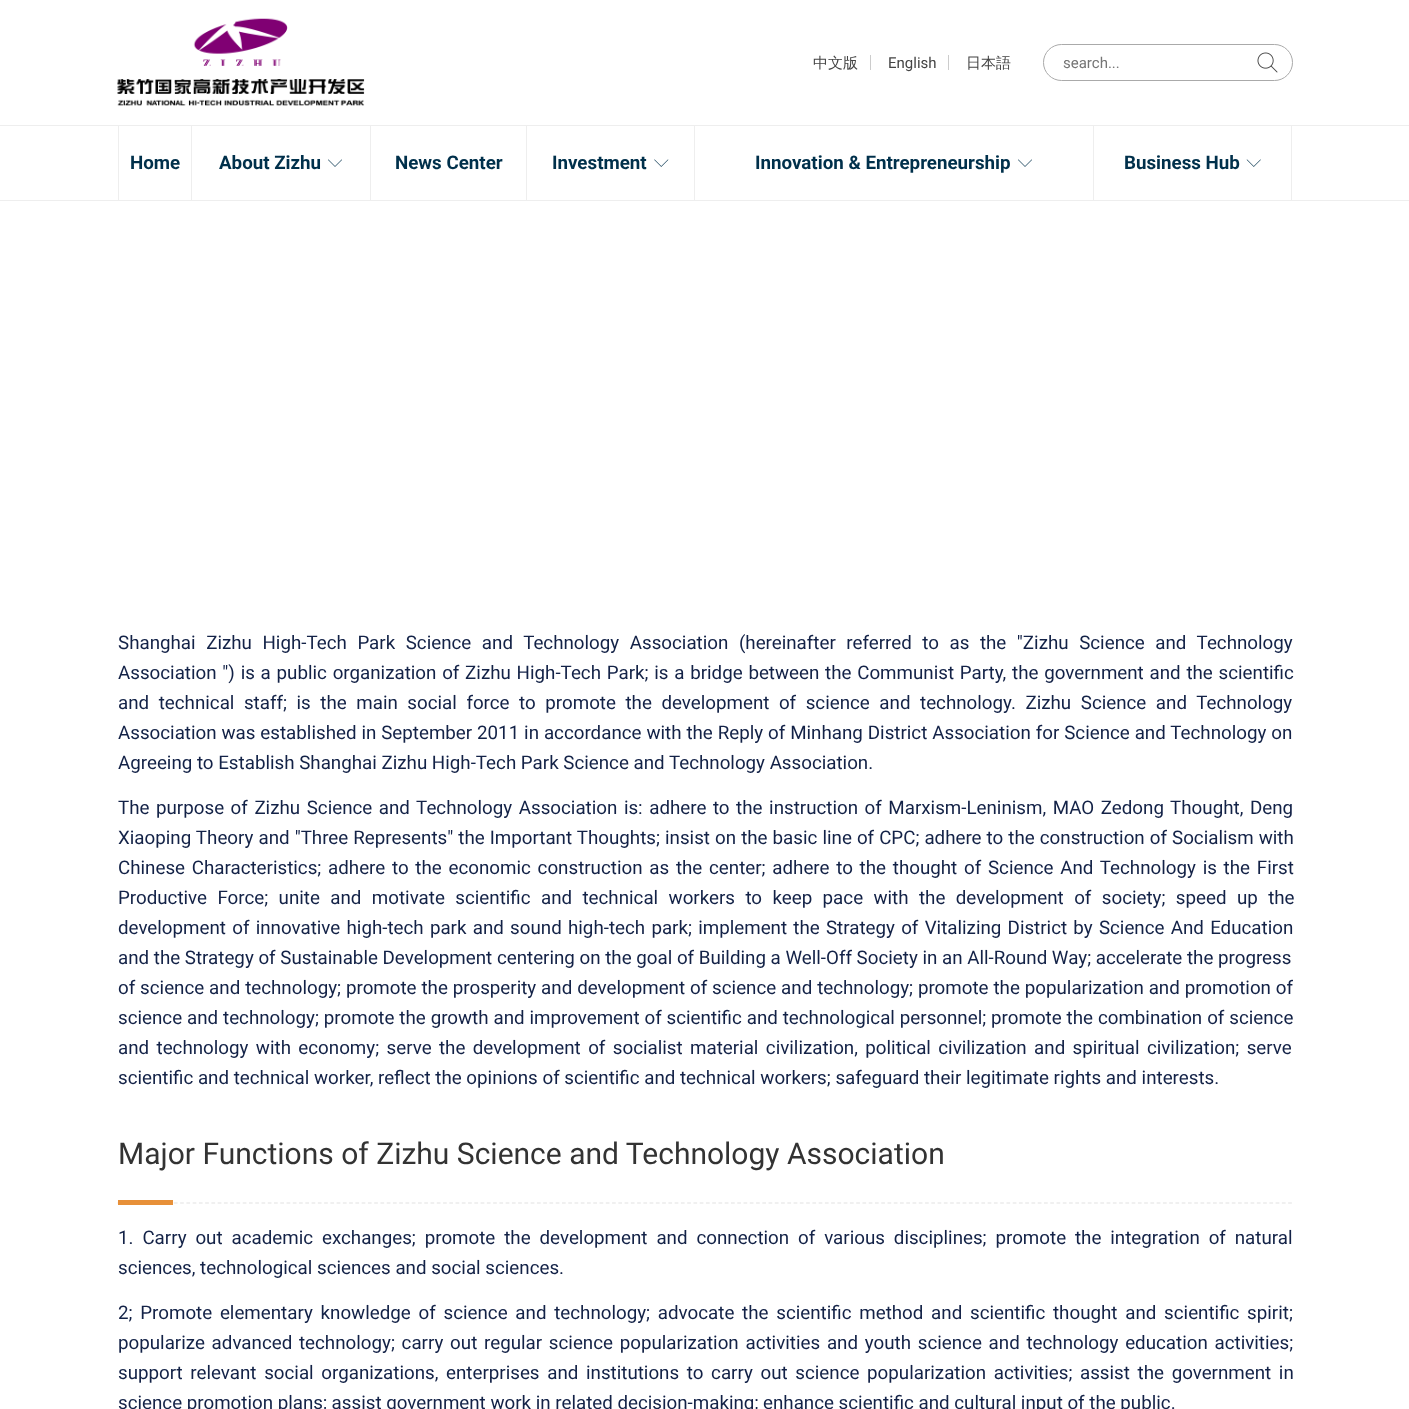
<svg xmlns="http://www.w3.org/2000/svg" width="1409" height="1409">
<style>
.a{font:500 15px WenQuanYi Zen Hei;fill:#444}
.b{font:15px Roboto;fill:#444}
.c{font:15px Roboto;fill:#757575}
.d{font:bold 18.75px Roboto;fill:#00304b}
.e{font:18.75px Roboto;fill:#132247}
.f{font:30px Roboto;fill:#333}
</style>
<rect width="100%" height="100%" fill="#fff"/>
<image href="1.png" x="117" y="18" width="248" height="88"/>
<path fill="#ccc" d="M870 55h1v15H870z"/>
<path fill="#ccc" d="M948 55h1v15H948z"/>
<rect fill="none" stroke="#aaa" x="1043.5" y="44.5" width="249" height="36" rx="18"/>
<image href="2.png" x="1257" y="52" width="21" height="21"/>
<path fill="#eee" d="M0 125h1409v1H0z"/>
<path fill="#eee" d="M0 200h1409v1H0z"/>
<path fill="#eee" d="M118 126h1v74H118z"/>
<path fill="#eee" d="M191 126h1v74H191z"/>
<image href="3.png" x="328" y="159" width="14" height="8"/>
<path fill="#eee" d="M370 126h1v74H370z"/>
<path fill="#eee" d="M526 126h1v74H526z"/>
<image href="4.png" x="654" y="159" width="15" height="8"/>
<path fill="#eee" d="M694 126h1v74H694z"/>
<image href="3.png" x="1018" y="159" width="14" height="8"/>
<path fill="#eee" d="M1291 126h1v74H1291z"/>
<path fill="#eee" d="M1093 126h1v74H1093z"/>
<image href="5.png" x="1246" y="159" width="15" height="8"/>
<path fill="none" stroke="#e2e2e2" stroke-width="1.2" stroke-dasharray="3.75 2.51" d="M117.5 1203h1175"/>
<path fill="#e79039" d="M118 1200h55v5H118z"/>
<text class="a" x="813" y="68">中文版</text>
<text class="b" x="888" y="68">English</text>
<text class="a" x="966" y="68">日本語</text>
<text class="c" x="1063" y="68">search...</text>
<text class="d" x="130" y="169">Home</text>
<text class="d" x="219" y="169">About Zizhu</text>
<text class="d" x="395" y="169">News Center</text>
<text class="d" x="552" y="169">Investment</text>
<text class="d" x="755" y="169">Innovation &amp; Entrepreneurship</text>
<text class="d" x="1124" y="169">Business Hub</text>
<text class="e" x="118" y="649" word-spacing="5.9">Shanghai Zizhu High-Tech Park Science and Technology Association (hereinafter referred to as the "Zizhu Science and Technology</text>
<text class="e" x="118" y="679" word-spacing="1.1">Association ") is a public organization of Zizhu High-Tech Park; is a bridge between the Communist Party, the government and the scientific</text>
<text class="e" x="118" y="709" word-spacing="4.9">and technical staff; is the main social force to promote the development of science and technology. Zizhu Science and Technology</text>
<text class="e" x="118" y="739" word-spacing="0.25">Association was established in September 2011 in accordance with the Reply of Minhang District Association for Science and Technology on</text>
<text class="e" x="118" y="769">Agreeing to Establish Shanghai Zizhu High-Tech Park Science and Technology Association.</text>
<text class="e" x="118" y="814" word-spacing="1.9">The purpose of Zizhu Science and Technology Association is: adhere to the instruction of Marxism-Leninism, MAO Zedong Thought, Deng</text>
<text class="e" x="118" y="844" word-spacing="0.4">Xiaoping Theory and "Three Represents" the Important Thoughts; insist on the basic line of CPC; adhere to the construction of Socialism with</text>
<text class="e" x="118" y="874" word-spacing="2.1">Chinese Characteristics; adhere to the economic construction as the center; adhere to the thought of Science And Technology is the First</text>
<text class="e" x="118" y="904" word-spacing="5.75">Productive Force; unite and motivate scientific and technical workers to keep pace with the development of society; speed up the</text>
<text class="e" x="118" y="934" word-spacing="1.6">development of innovative high-tech park and sound high-tech park; implement the Strategy of Vitalizing District by Science And Education</text>
<text class="e" x="118" y="964">and the Strategy of Sustainable Development centering on the goal of Building a Well-Off Society in an All-Round Way; accelerate the progress</text>
<text class="e" x="118" y="994" word-spacing="0.25">of science and technology; promote the prosperity and development of science and technology; promote the popularization and promotion of</text>
<text class="e" x="118" y="1024" word-spacing="0.25">science and technology; promote the growth and improvement of scientific and technological personnel; promote the combination of science</text>
<text class="e" x="118" y="1054" word-spacing="2.75">and technology with economy; serve the development of socialist material civilization, political civilization and spiritual civilization; serve</text>
<text class="e" x="118" y="1084">scientific and technical worker, reflect the opinions of scientific and technical workers; safeguard their legitimate rights and interests.</text>
<text class="f" x="118" y="1164">Major Functions of Zizhu Science and Technology Association</text>
<text class="e" x="118" y="1244" word-spacing="4.25">1. Carry out academic exchanges; promote the development and connection of various disciplines; promote the integration of natural</text>
<text class="e" x="118" y="1274">sciences, technological sciences and social sciences.</text>
<text class="e" x="118" y="1319" word-spacing="3.1">2; Promote elementary knowledge of science and technology; advocate the scientific method and scientific thought and scientific spirit;</text>
<text class="e" x="118" y="1349" word-spacing="2.1">popularize advanced technology; carry out regular science popularization activities and youth science and technology education activities;</text>
<text class="e" x="118" y="1379" word-spacing="3">support relevant social organizations, enterprises and institutions to carry out science popularization activities; assist the government in</text>
<text class="e" x="118" y="1409">science promotion plans; assist government work in related decision-making; enhance scientific and cultural input of the public.</text>
</svg>
